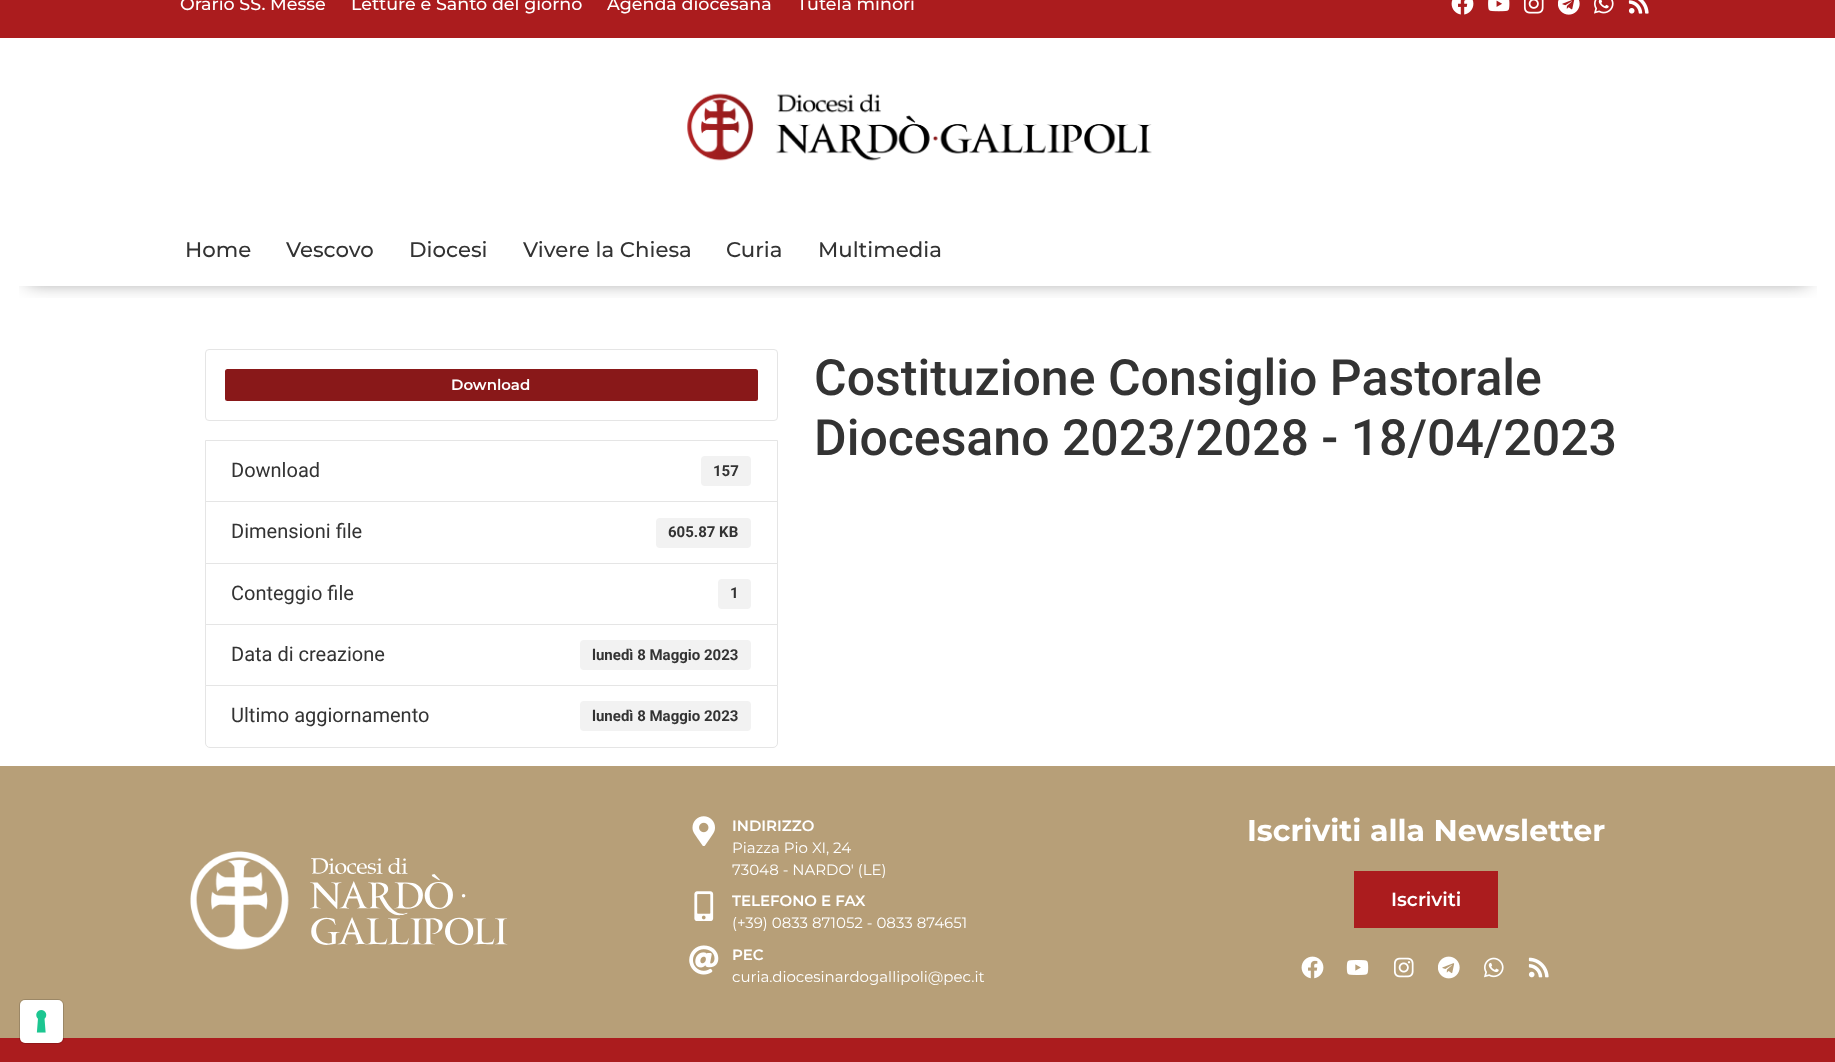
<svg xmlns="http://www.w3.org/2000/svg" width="1835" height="1062">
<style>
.a{font:500 17.5px Montserrat;fill:#fff}
.b{font:500 21.25px Montserrat;fill:#333}
.c{font:600 15px Montserrat;fill:#fff}
.d{font:20px Roboto;fill:#333}
.e{font:bold 15px Roboto;fill:#333}
.f{font:500 50px Roboto;fill:#333}
.g{font:15px Montserrat;fill:#fff}
.h{font:bold 30px Montserrat;fill:#fff}
.i{font:600 19px Montserrat;fill:#fff}
</style>
<defs>
<clipPath id="clip1"><path d="M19 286h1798v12H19z"/></clipPath>
</defs>
<rect width="100%" height="100%" fill="#fff"/>
<path fill="#ab1c1e" d="M0 0h1835v38H0z"/>
<image href="1.png" x="1451" y="0" width="23" height="15"/>
<image href="2.png" x="1488" y="0" width="22" height="12"/>
<image href="3.png" x="1523" y="0" width="21" height="14"/>
<image href="4.png" x="1558" y="0" width="22" height="15"/>
<image href="5.png" x="1594" y="0" width="20" height="14"/>
<image href="6.png" x="1628" y="0" width="21" height="14"/>
<image href="7.png" x="687" y="93" width="465" height="68"/>
<g clip-path="url(#clip1)">
<path fill="#00000080" filter="blur(9.5px)" d="M28 263h1780v18H28z"/>
</g>
<rect fill="none" stroke="#e5e5e5" x="205.5" y="349.5" width="572" height="71" rx="3.5"/>
<rect fill="#891819" x="225" y="369" width="533" height="32" rx="2.5"/>
<path fill="none" stroke="#e5e5e5" d="M205.5 440.5h572v62H205.5z"/>
<rect fill="#f2f2f2" x="701" y="456" width="50" height="30" rx="4"/>
<path fill="#fff" d="M206 502h571v1H206z"/>
<path fill="none" stroke="#e5e5e5" d="M205.5 501.5h572v62H205.5z"/>
<rect fill="#f2f2f2" x="656" y="518" width="95" height="30" rx="4"/>
<path fill="none" stroke="#e5e5e5" d="M205.5 563.5h572v61H205.5z"/>
<rect fill="#f2f2f2" x="718" y="579" width="33" height="30" rx="4"/>
<path fill="none" stroke="#e5e5e5" d="M205.5 624.5h572v61H205.5z"/>
<rect fill="#f2f2f2" x="580" y="640" width="171" height="30" rx="4"/>
<path fill="#fff" stroke="#e5e5e5" d="M205.5 685.5h572v57.5c0 2.5-2 4.5-4.5 4.5h-563c-2.5 0-4.5-2-4.5-4.5z"/>
<rect fill="#f2f2f2" x="580" y="701" width="171" height="30" rx="4"/>
<path fill="#b79f78" d="M0 766h1835v272H0z"/>
<image href="8.png" x="190" y="851" width="99" height="99"/>
<image href="9.png" x="310" y="858" width="198" height="87"/>
<image href="10.png" x="692" y="816" width="23" height="30"/>
<image href="11.png" x="694" y="891" width="20" height="30"/>
<image href="12.png" x="689" y="945" width="30" height="30"/>
<path fill="#ab1c1e" d="M1354 871h144v57H1354z"/>
<image href="13.png" x="1301" y="956" width="23" height="23"/>
<image href="14.png" x="1346" y="960" width="23" height="15"/>
<image href="15.png" x="1394" y="957" width="20" height="21"/>
<image href="16.png" x="1438" y="956" width="22" height="23"/>
<image href="17.png" x="1484" y="957" width="20" height="21"/>
<image href="18.png" x="1528" y="957" width="21" height="21"/>
<path fill="#ab1c1e" d="M0 1038h1835v24H0z"/>
<rect fill="none" stroke="#00000026" x="19.5" y="999.5" width="44" height="44" rx="5.5"/>
<rect fill="#fff" x="20" y="1000" width="43" height="43" rx="5"/>
<image href="19.png" x="36" y="1010" width="11" height="23"/>
<text class="a" x="180" y="10">Orario SS. Messe</text>
<text class="a" x="351" y="10">Letture e Santo del giorno</text>
<text class="a" x="607" y="10">Agenda diocesana</text>
<text class="a" x="797" y="10">Tutela minori</text>
<text class="b" x="185" y="257">Home</text>
<text class="b" x="286" y="257">Vescovo</text>
<text class="b" x="409" y="257">Diocesi</text>
<text class="b" x="523" y="257">Vivere la Chiesa</text>
<text class="b" x="726" y="257">Curia</text>
<text class="b" x="818" y="257">Multimedia</text>
<text class="c" x="451" y="390">Download</text>
<text class="d" x="231" y="477">Download</text>
<text class="e" x="713" y="476">157</text>
<text class="d" x="231" y="538">Dimensioni file</text>
<text class="e" x="668" y="537">605.87 KB</text>
<text class="d" x="231" y="600">Conteggio file</text>
<text class="e" x="730" y="598">1</text>
<text class="d" x="231" y="661">Data di creazione</text>
<text class="e" x="592" y="660">lunedì 8 Maggio 2023</text>
<text class="d" x="231" y="722">Ultimo aggiornamento</text>
<text class="e" x="592" y="721">lunedì 8 Maggio 2023</text>
<text class="f" x="814" y="395">Costituzione Consiglio Pastorale</text>
<text class="f" x="814" y="455">Diocesano 2023/2028 - 18/04/2023</text>
<text class="c" x="732" y="831">INDIRIZZO</text>
<text class="g" x="732" y="853">Piazza Pio XI, 24</text>
<text class="g" x="732" y="875">73048 - NARDO' (LE)</text>
<text class="c" x="732" y="906">TELEFONO E FAX</text>
<text class="g" x="732" y="928">(+39) 0833 871052 - 0833 874651</text>
<text class="c" x="732" y="960">PEC</text>
<text class="g" x="732" y="982">curia.diocesinardogallipoli@pec.it</text>
<text class="h" x="1247" y="841">Iscriviti alla Newsletter</text>
<text class="i" x="1391" y="906">Iscriviti</text>
</svg>
